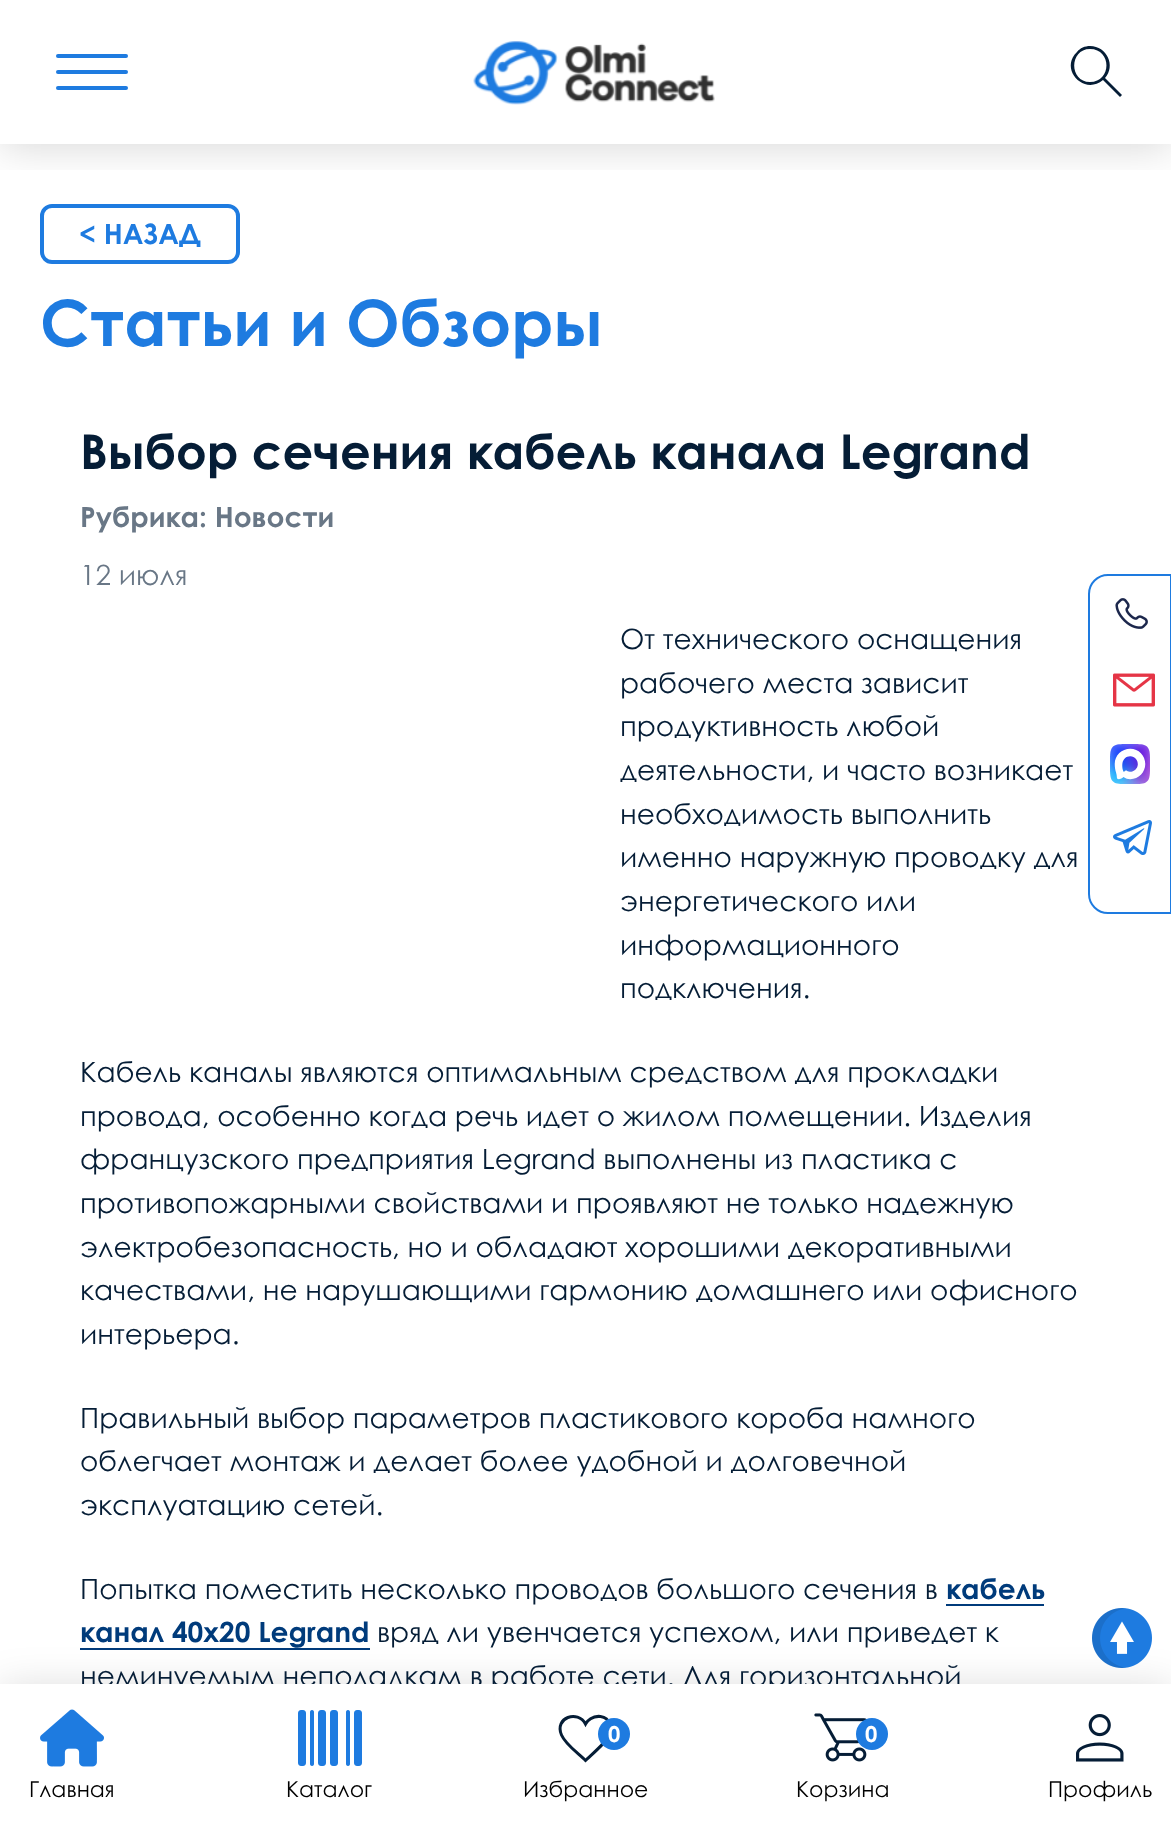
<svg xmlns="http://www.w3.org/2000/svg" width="1171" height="1827">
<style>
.a{font:bold 28px Century Gothic;fill:#1e7be0}
.b{font:bold 64px Century Gothic;fill:#1e7be0}
.c{font:bold 48px Century Gothic;fill:#051d36}
.d{font:bold 28px Century Gothic;fill:#697786}
.e{font:28px Century Gothic;fill:#697786}
.f{font:28px Century Gothic;fill:#051d36}
.g{font:bold 28px Century Gothic;fill:#003b7b}
.h{font:22px Century Gothic;fill:#000}
.i{font:bold 22px Century Gothic;fill:#fff}
</style>
<defs>
<clipPath id="clip1"><path d="M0 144h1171v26H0z"/></clipPath>
</defs>
<rect width="100%" height="100%" fill="#fff"/>
<rect fill="none" stroke="#1e7be0" stroke-width="4" x="42" y="206" width="196" height="56" rx="10"/>
<path fill="#003b7b" d="M946 1604h98v2H946z"/>
<path fill="#003b7b" d="M80 1648h290v2H80z"/>
<path fill="none" stroke="#1e7be0" stroke-width="2" d="M1108 575h63v338h-63c-10.5 0-19-8.5-19-19v-300c0-10.5 8.5-19 19-19z"/>
<image href="1.png" x="1115" y="598" width="33" height="31"/>
<image href="2.png" x="1113" y="673" width="42" height="34"/>
<image href="3.png" x="1110" y="744" width="40" height="40"/>
<image href="4.png" x="1113" y="820" width="39" height="35"/>
<path fill="#00000026" filter="blur(20px)" d="M0 1688h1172v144H0z"/>
<image href="5.png" x="1092" y="1608" width="60" height="60"/>
<g clip-path="url(#clip1)">
<path fill="#00000026" filter="blur(20px)" d="M0 4h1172v144H0z"/>
</g>
<rect fill="#1e7be0" x="56" y="54" width="72" height="4" rx="2"/>
<rect fill="#1e7be0" x="56" y="70" width="72" height="4" rx="2"/>
<rect fill="#1e7be0" x="56" y="86" width="72" height="4" rx="2"/>
<image href="6.png" x="473" y="41" width="242" height="64"/>
<path fill="#051d36" d="M1090 46c17 0 26 20 15 32l17 17l-2 2l-17-17c-19 16-44-11-26-28c3-4 8-6 13-6zm0 3c-21 0-21 33 0 33c22 0 22-33 0-33z"/>
<text class="a" x="79" y="244">&lt; НАЗАД</text>
<text class="b" x="40" y="346">Статьи и Обзоры</text>
<text class="c" x="80" y="469">Выбор сечения кабель канала Legrand</text>
<text class="d" x="80" y="527">Рубрика: Новости</text>
<text class="e" x="80" y="585">12 июля</text>
<text class="f" x="620" y="649">От технического оснащения</text>
<text class="f" x="620" y="693">рабочего места зависит</text>
<text class="f" x="620" y="736">продуктивность любой</text>
<text class="f" x="620" y="780">деятельности, и часто возникает</text>
<text class="f" x="620" y="824">необходимость выполнить</text>
<text class="f" x="620" y="867">именно наружную проводку для</text>
<text class="f" x="620" y="911">энергетического или</text>
<text class="f" x="620" y="955">информационного</text>
<text class="f" x="620" y="998">подключения.</text>
<text class="f" x="80" y="1082">Кабель каналы являются оптимальным средством для прокладки</text>
<text class="f" x="80" y="1126">провода, особенно когда речь идет о жилом помещении. Изделия</text>
<text class="f" x="80" y="1169">французского предприятия Legrand выполнены из пластика с</text>
<text class="f" x="80" y="1213">противопожарными свойствами и проявляют не только надежную</text>
<text class="f" x="80" y="1257">электробезопасность, но и обладают хорошими декоративными</text>
<text class="f" x="80" y="1300">качествами, не нарушающими гармонию домашнего или офисного</text>
<text class="f" x="80" y="1344">интерьера.</text>
<text class="f" x="80" y="1428">Правильный выбор параметров пластикового короба намного</text>
<text class="f" x="80" y="1471">облегчает монтаж и делает более удобной и долговечной</text>
<text class="f" x="80" y="1515">эксплуатацию сетей.</text>
<text class="f" x="80" y="1599">Попытка поместить несколько проводов большого сечения в</text>
<text class="g" x="946" y="1599">кабель</text>
<text class="g" x="80" y="1642">канал 40х20 Legrand</text>
<text class="f" x="377" y="1642">вряд ли увенчается успехом, или приведет к</text>
<text class="f" x="80" y="1686">неминуемым неполадкам в работе сети. Для горизонтальной</text>
<path fill="#fff" d="M0 1684h1171v143H0z"/>
<image href="7.png" x="40" y="1709" width="64" height="58"/>
<text class="h" x="29" y="1797">Главная</text>
<image href="8.png" x="298" y="1710" width="64" height="56"/>
<text class="h" x="286" y="1797">Каталог</text>
<path fill="none" stroke="#051d36" stroke-width="3" stroke-linecap="round" d="M600.5 1716.5c-8-1-13.5 4.5-15 7.5c-7.5-14.5-31.5-6.5-24 11c4 9.5 17 18.5 24 25.5c4.5-4.5 16-14 21.5-21.5c7-9 3-21.5-6.5-22.5z"/>
<circle fill="#1e7be0" cx="614" cy="1734" r="16"/>
<text class="i" x="608" y="1742">0</text>
<text class="h" x="523" y="1797">Избранное</text>
<image href="9.png" x="814" y="1713" width="53" height="49"/>
<circle fill="#1e7be0" cx="872" cy="1734" r="16"/>
<text class="i" x="865" y="1742">0</text>
<text class="h" x="796" y="1797">Корзина</text>
<image href="10.png" x="1076" y="1714" width="48" height="48"/>
<text class="h" x="1048" y="1797">Профиль</text>
</svg>
